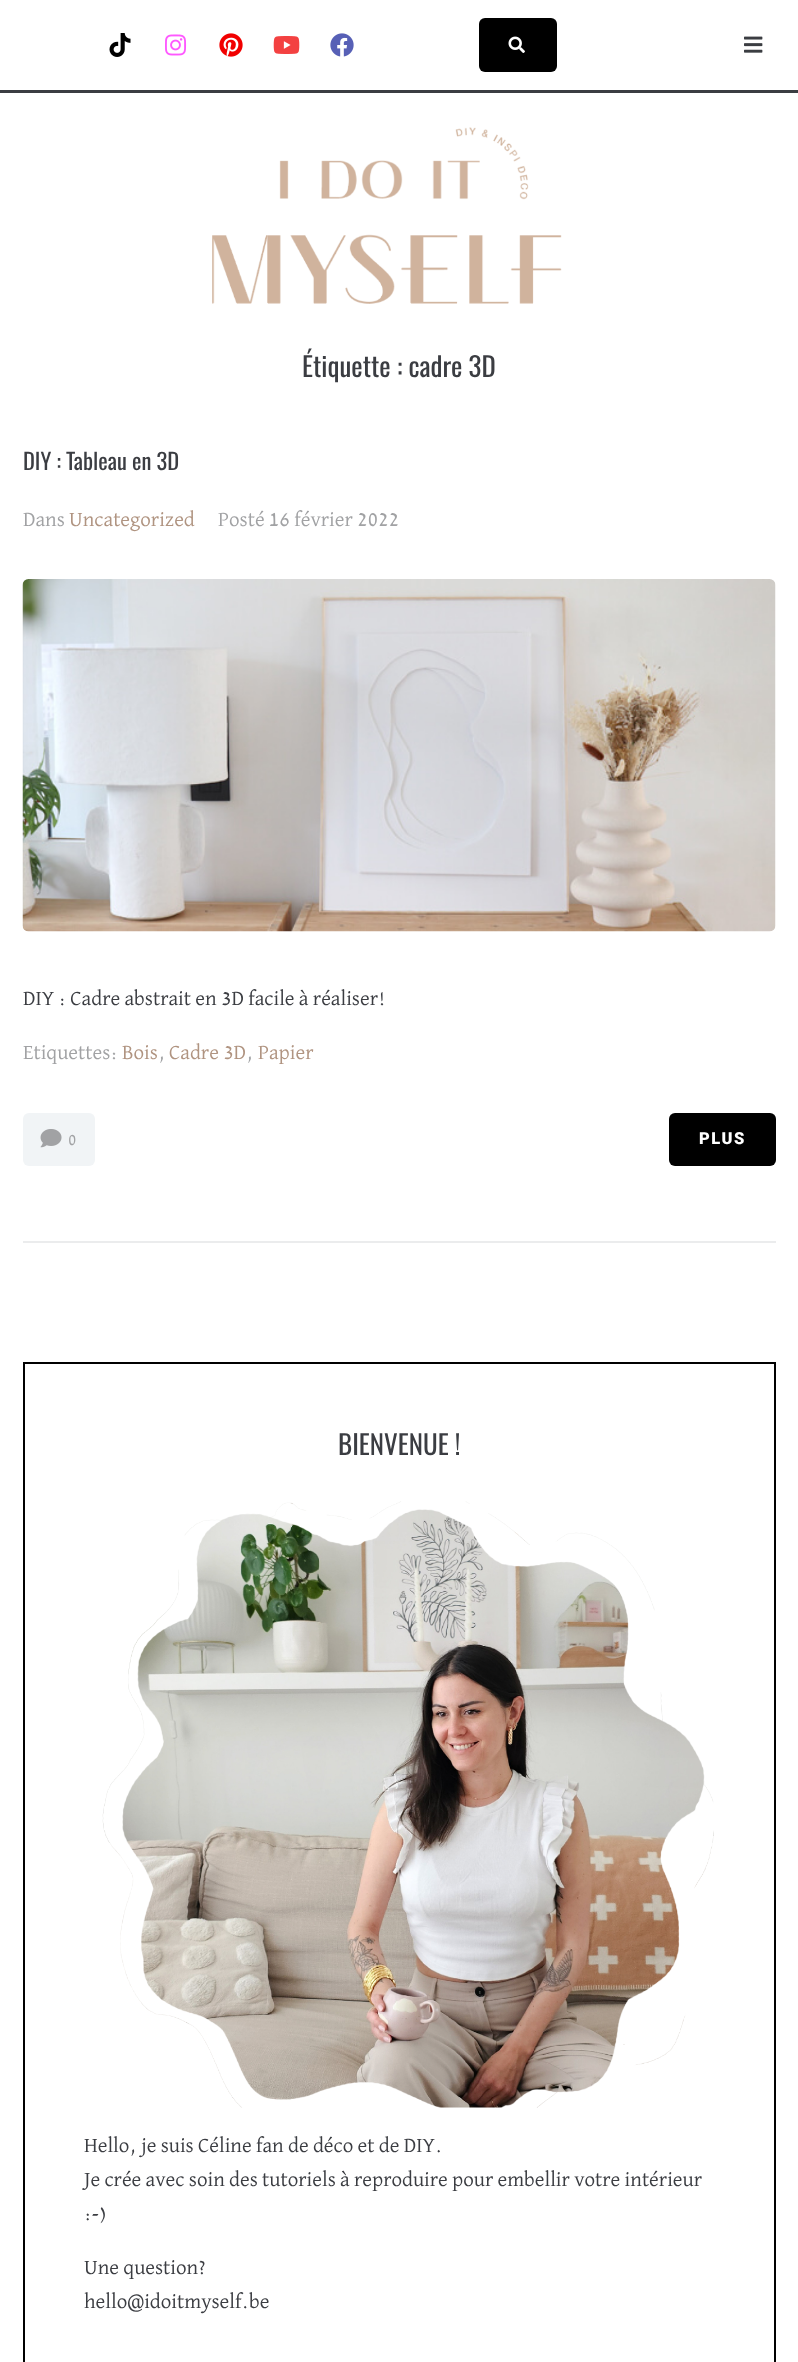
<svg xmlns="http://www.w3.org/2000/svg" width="798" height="2362">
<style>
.a{font:27px Oswald;fill:#3b3d42}
.b{font:22.5px Oswald;fill:#3b3d42}
.c{font:21px David Libre;fill:#a1a2a4}
.d{font:21px David Libre;fill:#b09481}
.e{font:21px David Libre;fill:#3b3d42}
.f{font:16.5px David Libre;fill:#a1a2a4}
.g{font:900 16.5px Roboto;letter-spacing:1.5px;fill:#fff}
</style>
<rect width="100%" height="100%" fill="#fff"/>
<path fill="#3b3d42" d="M0 90h798v3H0z"/>
<image href="1.png" x="109" y="33" width="22" height="24"/>
<image href="2.png" x="165" y="34" width="22" height="22"/>
<image href="3.png" x="219" y="33" width="24" height="24"/>
<image href="4.png" x="273" y="36" width="27" height="18"/>
<image href="5.png" x="330" y="33" width="24" height="24"/>
<rect fill="#000" x="479" y="18" width="78" height="54" rx="6"/>
<image href="6.png" x="508" y="36" width="17" height="17"/>
<image href="7.png" x="744" y="36" width="19" height="17"/>
<image href="8.png" x="212" y="127" width="350" height="177"/>
<image href="9.png" x="22" y="579" width="754" height="353"/>
<rect fill="#f1f4f6" x="23" y="1113" width="72" height="53" rx="6"/>
<image href="10.png" x="40" y="1129" width="22" height="19"/>
<rect fill="#000" x="669" y="1113" width="107" height="53" rx="6"/>
<path fill="#ebeced" d="M23 1241h753v2H23z"/>
<path fill="none" stroke="#000" stroke-width="2" d="M24 1363h751v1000H24z"/>
<image href="11.png" x="102" y="1501" width="612" height="607"/>
<text class="a" x="302" y="377">Étiquette : cadre 3D</text>
<text class="b" x="23" y="470">DIY : Tableau en 3D</text>
<text class="c" x="23" y="526">Dans</text>
<text class="d" x="69" y="526">Uncategorized</text>
<text class="c" x="218" y="526">Posté 16 février 2022</text>
<text class="e" x="23" y="1005">DIY : Cadre abstrait en 3D facile à réaliser!</text>
<text class="c" x="23" y="1059">Etiquettes:</text>
<text class="d" x="122" y="1059">Bois</text>
<text class="c" x="158" y="1059">,</text>
<text class="d" x="169" y="1059">Cadre 3D</text>
<text class="c" x="246" y="1059">,</text>
<text class="d" x="258" y="1059">Papier</text>
<text class="f" x="68" y="1145">0</text>
<text class="g" x="699" y="1144">PLUS</text>
<text class="a" x="338" y="1455">BIENVENUE !</text>
<text class="e" x="84" y="2152">Hello, je suis Céline fan de déco et de DIY.</text>
<text class="e" x="84" y="2186">Je crée avec soin des tutoriels à reproduire pour embellir votre intérieur</text>
<text class="e" x="84" y="2220">:-)</text>
<text class="e" x="84" y="2274">Une question?</text>
<text class="e" x="84" y="2308">hello@idoitmyself.be</text>
</svg>
